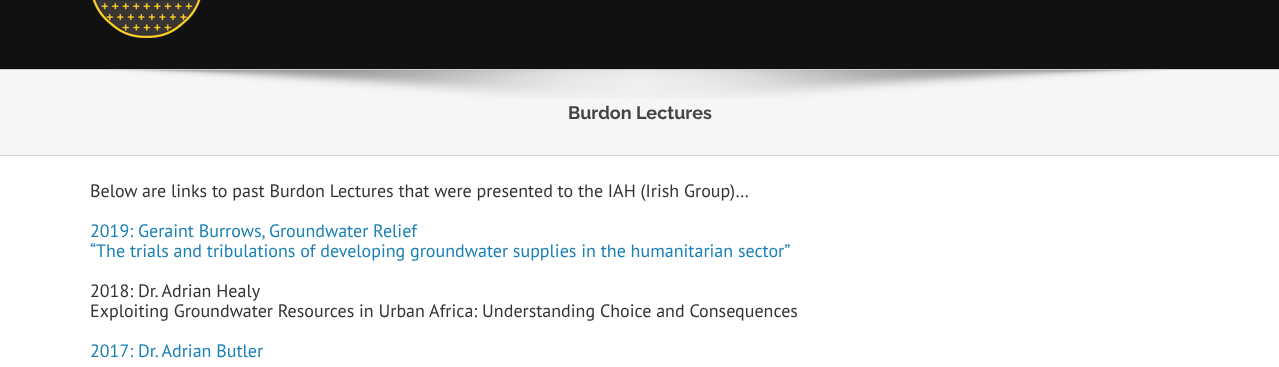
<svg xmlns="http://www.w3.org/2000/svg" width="1279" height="367">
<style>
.a{font:bold 18px Raleway;fill:#444}
.b{font:18px PT Sans;fill:#333}
.c{font:18px PT Sans;fill:#1a80b6}
</style>
<rect width="100%" height="100%" fill="#fff"/>
<path fill="#111" d="M0 0h1279v69H0z"/>
<image href="1.png" x="92" y="0" width="109" height="38"/>
<path fill="#f6f6f6" d="M0 70h1279v85H0z"/>
<image href="2.png" x="111" y="70" width="1057" height="29"/>
<path fill="#d2d3d4" d="M0 69h1279v1H0z"/>
<path fill="#d2d3d4" d="M0 155h1279v1H0z"/>
<text class="a" x="568" y="119">Burdon Lectures</text>
<text class="b" x="90" y="197">Below are links to past Burdon Lectures that were presented to the IAH (Irish Group)…</text>
<text class="c" x="90" y="237">2019: Geraint Burrows, Groundwater Relief</text>
<text class="c" x="90" y="257">“The trials and tribulations of developing groundwater supplies in the humanitarian sector”</text>
<text class="b" x="90" y="297">2018: Dr. Adrian Healy</text>
<text class="b" x="90" y="317">Exploiting Groundwater Resources in Urban Africa: Understanding Choice and Consequences</text>
<text class="c" x="90" y="357">2017: Dr. Adrian Butler</text>
</svg>
